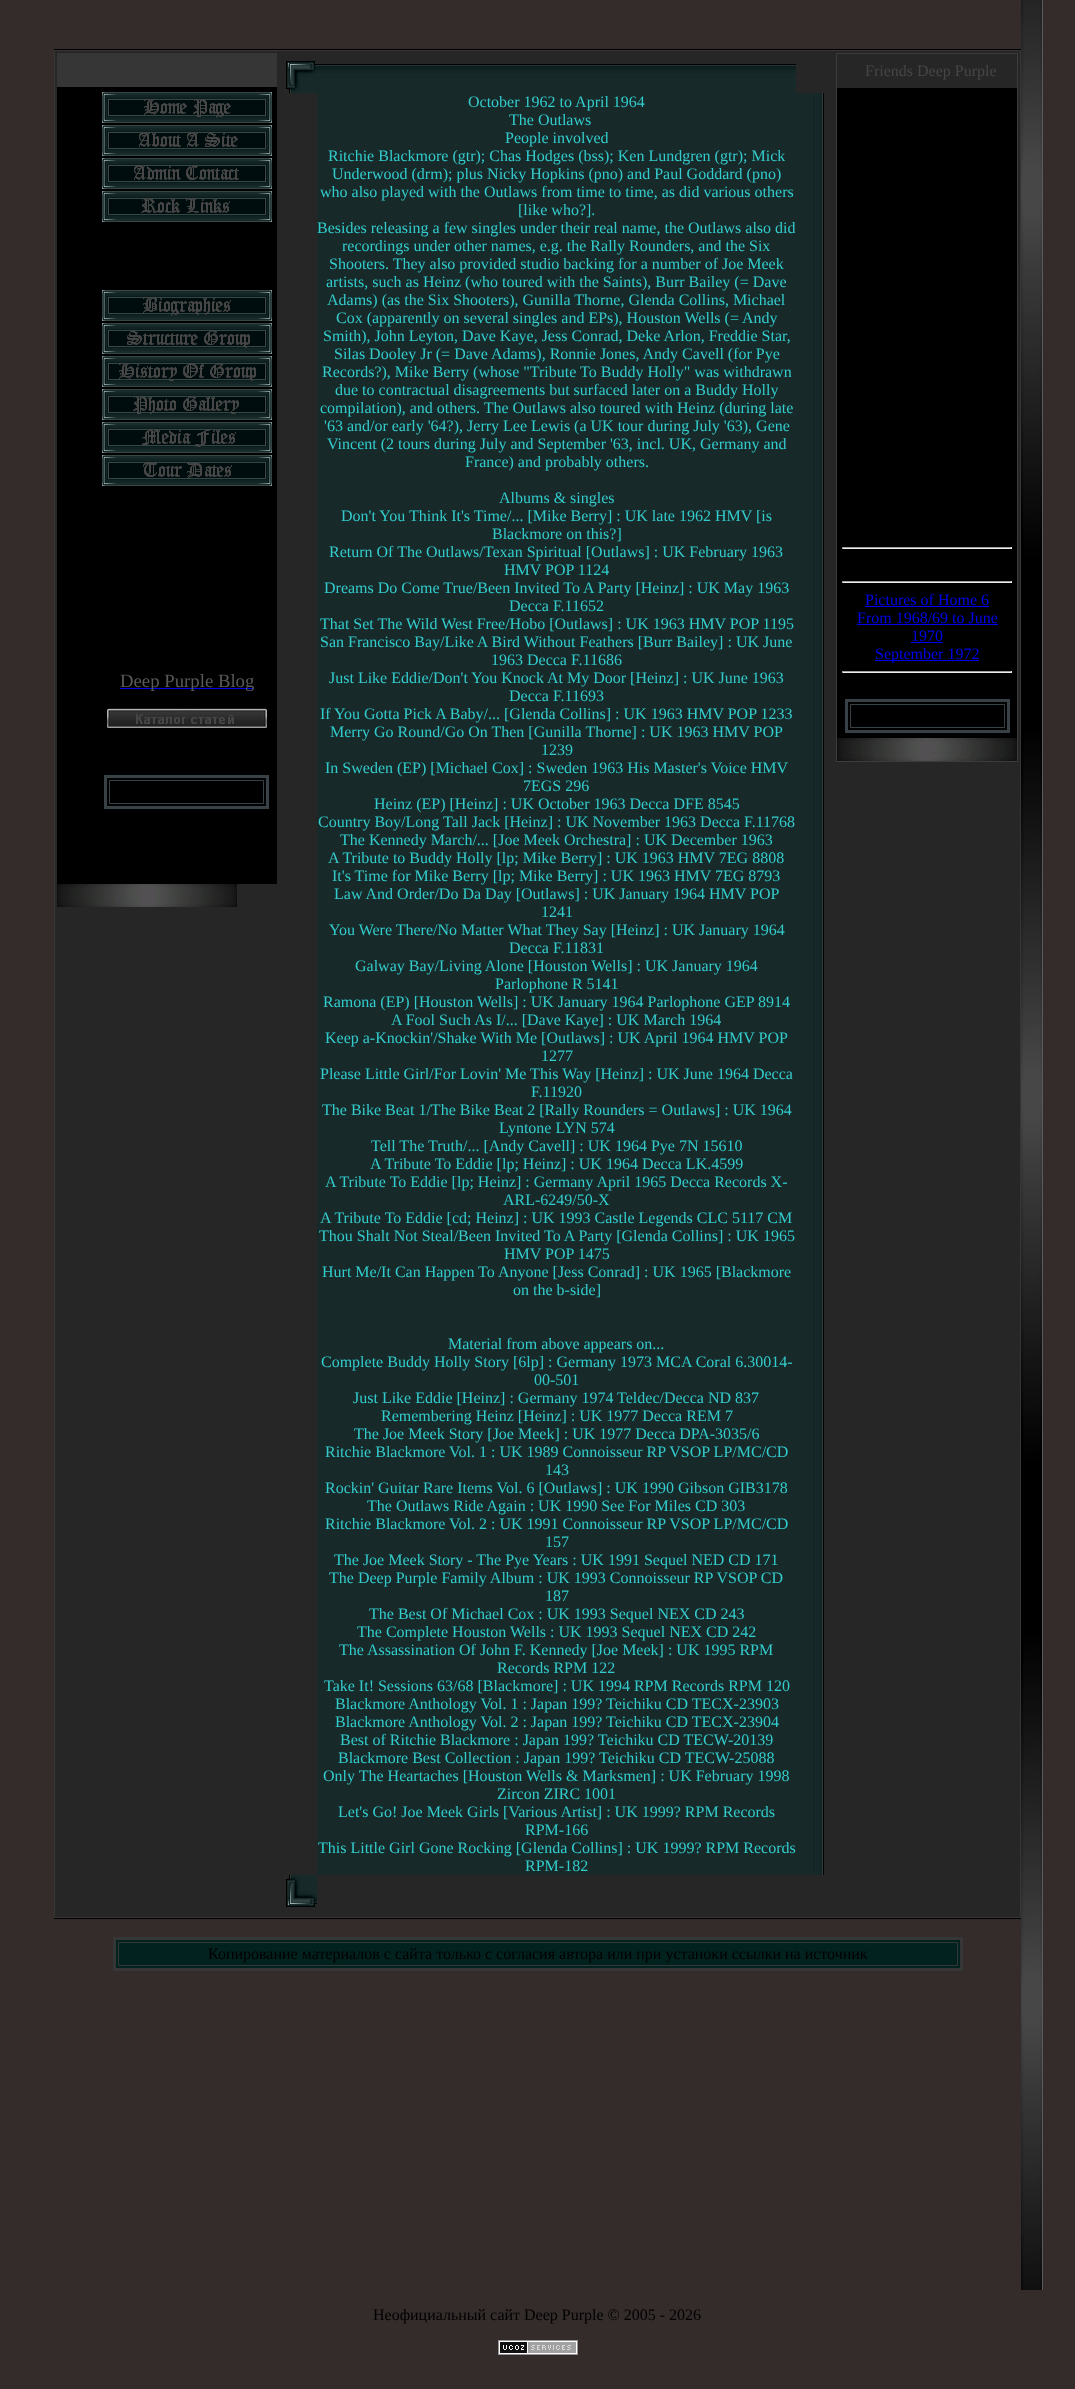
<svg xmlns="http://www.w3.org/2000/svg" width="1075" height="2389">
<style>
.a{font:18.75px Liberation Serif;fill:#595959}
.b{font:16px Liberation Serif;fill:#3cc}
.c{font:16px Liberation Serif;fill:#464646}
.d{font:16px Liberation Serif;fill:#00e}
.e{font:16px Liberation Serif;fill:#000}
</style>
<rect width="100%" height="100%" fill="#332c2a"/>
<path fill="#000" d="M54 49h967v1H54z"/>
<path fill="#000" d="M54 1918h967v1H54z"/>
<path fill="#262626" stroke="#363636" d="M54.5 50.5h966v1867H54.5z"/>
<path fill="#363636" d="M57 53h220v34H57z"/>
<path fill="#000" d="M57 87h220v797H57z"/>
<image href="1.png" x="102" y="92" width="170" height="31"/>
<image href="2.png" x="102" y="125" width="170" height="31"/>
<image href="3.png" x="102" y="158" width="170" height="31"/>
<image href="4.png" x="102" y="191" width="170" height="31"/>
<image href="5.png" x="102" y="290" width="170" height="31"/>
<image href="6.png" x="102" y="323" width="170" height="31"/>
<image href="7.png" x="102" y="356" width="170" height="31"/>
<image href="8.png" x="102" y="389" width="170" height="31"/>
<image href="9.png" x="102" y="422" width="170" height="31"/>
<image href="10.png" x="102" y="455" width="170" height="31"/>
<path fill="#00e" d="M120 688h134v1H120z"/>
<image href="11.png" x="107" y="708" width="160" height="20"/>
<path fill="none" stroke="#384146" stroke-width="3" d="M105.5 776.5h162v31H105.5z"/>
<path fill="none" stroke="#384146" d="M109.5 780.5h154v23H109.5z"/>
<image href="12.png" x="57" y="884" width="180" height="23"/>
<image href="13.png" x="286" y="61" width="31" height="32"/>
<image href="14.png" x="317" y="64" width="479" height="29"/>
<path fill="#18292a" d="M317 93h479v1782H317z"/>
<image href="15.png" x="796" y="93" width="28" height="1782"/>
<image href="16.png" x="286" y="1875" width="31" height="32"/>
<path fill="none" stroke="#3c3c3c" d="M836.5 53.5h181v708H836.5z"/>
<path fill="#000" d="M837 88h180v650H837z"/>
<path fill="#9f9f9f" d="M842 547h170v1H842z"/>
<path fill="#eee" d="M1011 547h1v2H1011z"/>
<path fill="#eee" d="M842 548h170v1H842z"/>
<path fill="#9f9f9f" d="M842 547h1v2H842z"/>
<path fill="#9f9f9f" d="M842 581h170v1H842z"/>
<path fill="#eee" d="M1011 581h1v2H1011z"/>
<path fill="#eee" d="M842 582h170v1H842z"/>
<path fill="#9f9f9f" d="M842 581h1v2H842z"/>
<path fill="#00e" d="M865 606h124v1H865z"/>
<path fill="#00e" d="M857 624h141v1H857z"/>
<path fill="#00e" d="M911 642h32v1H911z"/>
<path fill="#00e" d="M875 660h104v1H875z"/>
<path fill="#9f9f9f" d="M842 671h170v1H842z"/>
<path fill="#eee" d="M1011 671h1v2H1011z"/>
<path fill="#eee" d="M842 672h170v1H842z"/>
<path fill="#9f9f9f" d="M842 671h1v2H842z"/>
<path fill="none" stroke="#384146" stroke-width="3" d="M846.5 700.5h162v31H846.5z"/>
<path fill="none" stroke="#384146" d="M850.5 704.5h154v23H850.5z"/>
<image href="12.png" x="837" y="738" width="180" height="23"/>
<path fill="#02221f" stroke="#363636" stroke-width="3" d="M114.5 1938.5h847v31H114.5z"/>
<path fill="none" stroke="#363636" d="M118.5 1942.5h839v23H118.5z"/>
<image href="17.png" x="1021" y="0" width="22" height="2290"/>
<image href="18.png" x="498" y="2340" width="80" height="15"/>
<text class="a" x="120" y="687">Deep Purple Blog</text>
<text class="b" x="468" y="107">October 1962 to April 1964</text>
<text class="b" x="509" y="125">The Outlaws</text>
<text class="b" x="505" y="143">People involved</text>
<text class="b" x="328" y="161">Ritchie Blackmore (gtr); Chas Hodges (bss); Ken Lundgren (gtr); Mick</text>
<text class="b" x="332" y="179">Underwood (drm); plus Nicky Hopkins (pno) and Paul Goddard (pno)</text>
<text class="b" x="320" y="197">who also played with the Outlaws from time to time, as did various others</text>
<text class="b" x="518" y="215">[like who?].</text>
<text class="b" x="317" y="233">Besides releasing a few singles under their real name, the Outlaws also did</text>
<text class="b" x="342" y="251">recordings under other names, e.g. the Rally Rounders, and the Six</text>
<text class="b" x="329" y="269">Shooters. They also provided studio backing for a number of Joe Meek</text>
<text class="b" x="326" y="287">artists, such as Heinz (who toured with the Saints), Burr Bailey (= Dave</text>
<text class="b" x="327" y="305">Adams) (as the Six Shooters), Gunilla Thorne, Glenda Collins, Michael</text>
<text class="b" x="336" y="323">Cox (apparently on several singles and EPs), Houston Wells (= Andy</text>
<text class="b" x="323" y="341">Smith), John Leyton, Dave Kaye, Jess Conrad, Deke Arlon, Freddie Star,</text>
<text class="b" x="334" y="359">Silas Dooley Jr (= Dave Adams), Ronnie Jones, Andy Cavell (for Pye</text>
<text class="b" x="322" y="377">Records?), Mike Berry (whose "Tribute To Buddy Holly" was withdrawn</text>
<text class="b" x="335" y="395">due to contractual disagreements but surfaced later on a Buddy Holly</text>
<text class="b" x="320" y="413">compilation), and others. The Outlaws also toured with Heinz (during late</text>
<text class="b" x="324" y="431">'63 and/or early '64?), Jerry Lee Lewis (a UK tour during July '63), Gene</text>
<text class="b" x="327" y="449">Vincent (2 tours during July and September '63, incl. UK, Germany and</text>
<text class="b" x="465" y="467">France) and probably others.</text>
<text class="b" x="499" y="503">Albums &amp; singles</text>
<text class="b" x="341" y="521">Don't You Think It's Time/... [Mike Berry] : UK late 1962 HMV [is</text>
<text class="b" x="492" y="539">Blackmore on this?]</text>
<text class="b" x="329" y="557">Return Of The Outlaws/Texan Spiritual [Outlaws] : UK February 1963</text>
<text class="b" x="504" y="575">HMV POP 1124</text>
<text class="b" x="324" y="593">Dreams Do Come True/Been Invited To A Party [Heinz] : UK May 1963</text>
<text class="b" x="509" y="611">Decca F.11652</text>
<text class="b" x="320" y="629">That Set The Wild West Free/Hobo [Outlaws] : UK 1963 HMV POP 1195</text>
<text class="b" x="320" y="647">San Francisco Bay/Like A Bird Without Feathers [Burr Bailey] : UK June</text>
<text class="b" x="491" y="665">1963 Decca F.11686</text>
<text class="b" x="329" y="683">Just Like Eddie/Don't You Knock At My Door [Heinz] : UK June 1963</text>
<text class="b" x="509" y="701">Decca F.11693</text>
<text class="b" x="320" y="719">If You Gotta Pick A Baby/... [Glenda Collins] : UK 1963 HMV POP 1233</text>
<text class="b" x="330" y="737">Merry Go Round/Go On Then [Gunilla Thorne] : UK 1963 HMV POP</text>
<text class="b" x="541" y="755">1239</text>
<text class="b" x="325" y="773">In Sweden (EP) [Michael Cox] : Sweden 1963 His Master's Voice HMV</text>
<text class="b" x="523" y="791">7EGS 296</text>
<text class="b" x="374" y="809">Heinz (EP) [Heinz] : UK October 1963 Decca DFE 8545</text>
<text class="b" x="318" y="827">Country Boy/Long Tall Jack [Heinz] : UK November 1963 Decca F.11768</text>
<text class="b" x="340" y="845">The Kennedy March/... [Joe Meek Orchestra] : UK December 1963</text>
<text class="b" x="328" y="863">A Tribute to Buddy Holly [lp; Mike Berry] : UK 1963 HMV 7EG 8808</text>
<text class="b" x="332" y="881">It's Time for Mike Berry [lp; Mike Berry] : UK 1963 HMV 7EG 8793</text>
<text class="b" x="334" y="899">Law And Order/Do Da Day [Outlaws] : UK January 1964 HMV POP</text>
<text class="b" x="541" y="917">1241</text>
<text class="b" x="329" y="935">You Were There/No Matter What They Say [Heinz] : UK January 1964</text>
<text class="b" x="509" y="953">Decca F.11831</text>
<text class="b" x="355" y="971">Galway Bay/Living Alone [Houston Wells] : UK January 1964</text>
<text class="b" x="495" y="989">Parlophone R 5141</text>
<text class="b" x="323" y="1007">Ramona (EP) [Houston Wells] : UK January 1964 Parlophone GEP 8914</text>
<text class="b" x="391" y="1025">A Fool Such As I/... [Dave Kaye] : UK March 1964</text>
<text class="b" x="325" y="1043">Keep a-Knockin'/Shake With Me [Outlaws] : UK April 1964 HMV POP</text>
<text class="b" x="541" y="1061">1277</text>
<text class="b" x="320" y="1079">Please Little Girl/For Lovin' Me This Way [Heinz] : UK June 1964 Decca</text>
<text class="b" x="531" y="1097">F.11920</text>
<text class="b" x="322" y="1115">The Bike Beat 1/The Bike Beat 2 [Rally Rounders = Outlaws] : UK 1964</text>
<text class="b" x="499" y="1133">Lyntone LYN 574</text>
<text class="b" x="371" y="1151">Tell The Truth/... [Andy Cavell] : UK 1964 Pye 7N 15610</text>
<text class="b" x="370" y="1169">A Tribute To Eddie [lp; Heinz] : UK 1964 Decca LK.4599</text>
<text class="b" x="325" y="1187">A Tribute To Eddie [lp; Heinz] : Germany April 1965 Decca Records X-</text>
<text class="b" x="503" y="1205">ARL-6249/50-X</text>
<text class="b" x="320" y="1223">A Tribute To Eddie [cd; Heinz] : UK 1993 Castle Legends CLC 5117 CM</text>
<text class="b" x="319" y="1241">Thou Shalt Not Steal/Been Invited To A Party [Glenda Collins] : UK 1965</text>
<text class="b" x="504" y="1259">HMV POP 1475</text>
<text class="b" x="322" y="1277">Hurt Me/It Can Happen To Anyone [Jess Conrad] : UK 1965 [Blackmore</text>
<text class="b" x="513" y="1295">on the b-side]</text>
<text class="b" x="448" y="1349">Material from above appears on...</text>
<text class="b" x="321" y="1367">Complete Buddy Holly Story [6lp] : Germany 1973 MCA Coral 6.30014-</text>
<text class="b" x="534" y="1385">00-501</text>
<text class="b" x="353" y="1403">Just Like Eddie [Heinz] : Germany 1974 Teldec/Decca ND 837</text>
<text class="b" x="381" y="1421">Remembering Heinz [Heinz] : UK 1977 Decca REM 7</text>
<text class="b" x="354" y="1439">The Joe Meek Story [Joe Meek] : UK 1977 Decca DPA-3035/6</text>
<text class="b" x="325" y="1457">Ritchie Blackmore Vol. 1 : UK 1989 Connoisseur RP VSOP LP/MC/CD</text>
<text class="b" x="545" y="1475">143</text>
<text class="b" x="325" y="1493">Rockin' Guitar Rare Items Vol. 6 [Outlaws] : UK 1990 Gibson GIB3178</text>
<text class="b" x="367" y="1511">The Outlaws Ride Again : UK 1990 See For Miles CD 303</text>
<text class="b" x="325" y="1529">Ritchie Blackmore Vol. 2 : UK 1991 Connoisseur RP VSOP LP/MC/CD</text>
<text class="b" x="545" y="1547">157</text>
<text class="b" x="334" y="1565">The Joe Meek Story - The Pye Years : UK 1991 Sequel NED CD 171</text>
<text class="b" x="329" y="1583">The Deep Purple Family Album : UK 1993 Connoisseur RP VSOP CD</text>
<text class="b" x="545" y="1601">187</text>
<text class="b" x="369" y="1619">The Best Of Michael Cox : UK 1993 Sequel NEX CD 243</text>
<text class="b" x="357" y="1637">The Complete Houston Wells : UK 1993 Sequel NEX CD 242</text>
<text class="b" x="339" y="1655">The Assassination Of John F. Kennedy [Joe Meek] : UK 1995 RPM</text>
<text class="b" x="497" y="1673">Records RPM 122</text>
<text class="b" x="324" y="1691">Take It! Sessions 63/68 [Blackmore] : UK 1994 RPM Records RPM 120</text>
<text class="b" x="335" y="1709">Blackmore Anthology Vol. 1 : Japan 199? Teichiku CD TECX-23903</text>
<text class="b" x="335" y="1727">Blackmore Anthology Vol. 2 : Japan 199? Teichiku CD TECX-23904</text>
<text class="b" x="340" y="1745">Best of Ritchie Blackmore : Japan 199? Teichiku CD TECW-20139</text>
<text class="b" x="338" y="1763">Blackmore Best Collection : Japan 199? Teichiku CD TECW-25088</text>
<text class="b" x="323" y="1781">Only The Heartaches [Houston Wells &amp; Marksmen] : UK February 1998</text>
<text class="b" x="497" y="1799">Zircon ZIRC 1001</text>
<text class="b" x="338" y="1817">Let's Go! Joe Meek Girls [Various Artist] : UK 1999? RPM Records</text>
<text class="b" x="525" y="1835">RPM-166</text>
<text class="b" x="318" y="1853">This Little Girl Gone Rocking [Glenda Collins] : UK 1999? RPM Records</text>
<text class="b" x="525" y="1871">RPM-182</text>
<text class="c" x="865" y="76">Friends Deep Purple</text>
<text class="d" x="865" y="605">Pictures of Home 6</text>
<text class="d" x="857" y="623">From 1968/69 to June</text>
<text class="d" x="911" y="641">1970</text>
<text class="d" x="875" y="659">September 1972</text>
<text class="e" x="208" y="1959">Копирование материалов с сайта только с согласия автора или при устаноки ссылки на источник</text>
<text class="e" x="373" y="2320">Неофициальный сайт Deep Purple © 2005 - 2026</text>
</svg>
